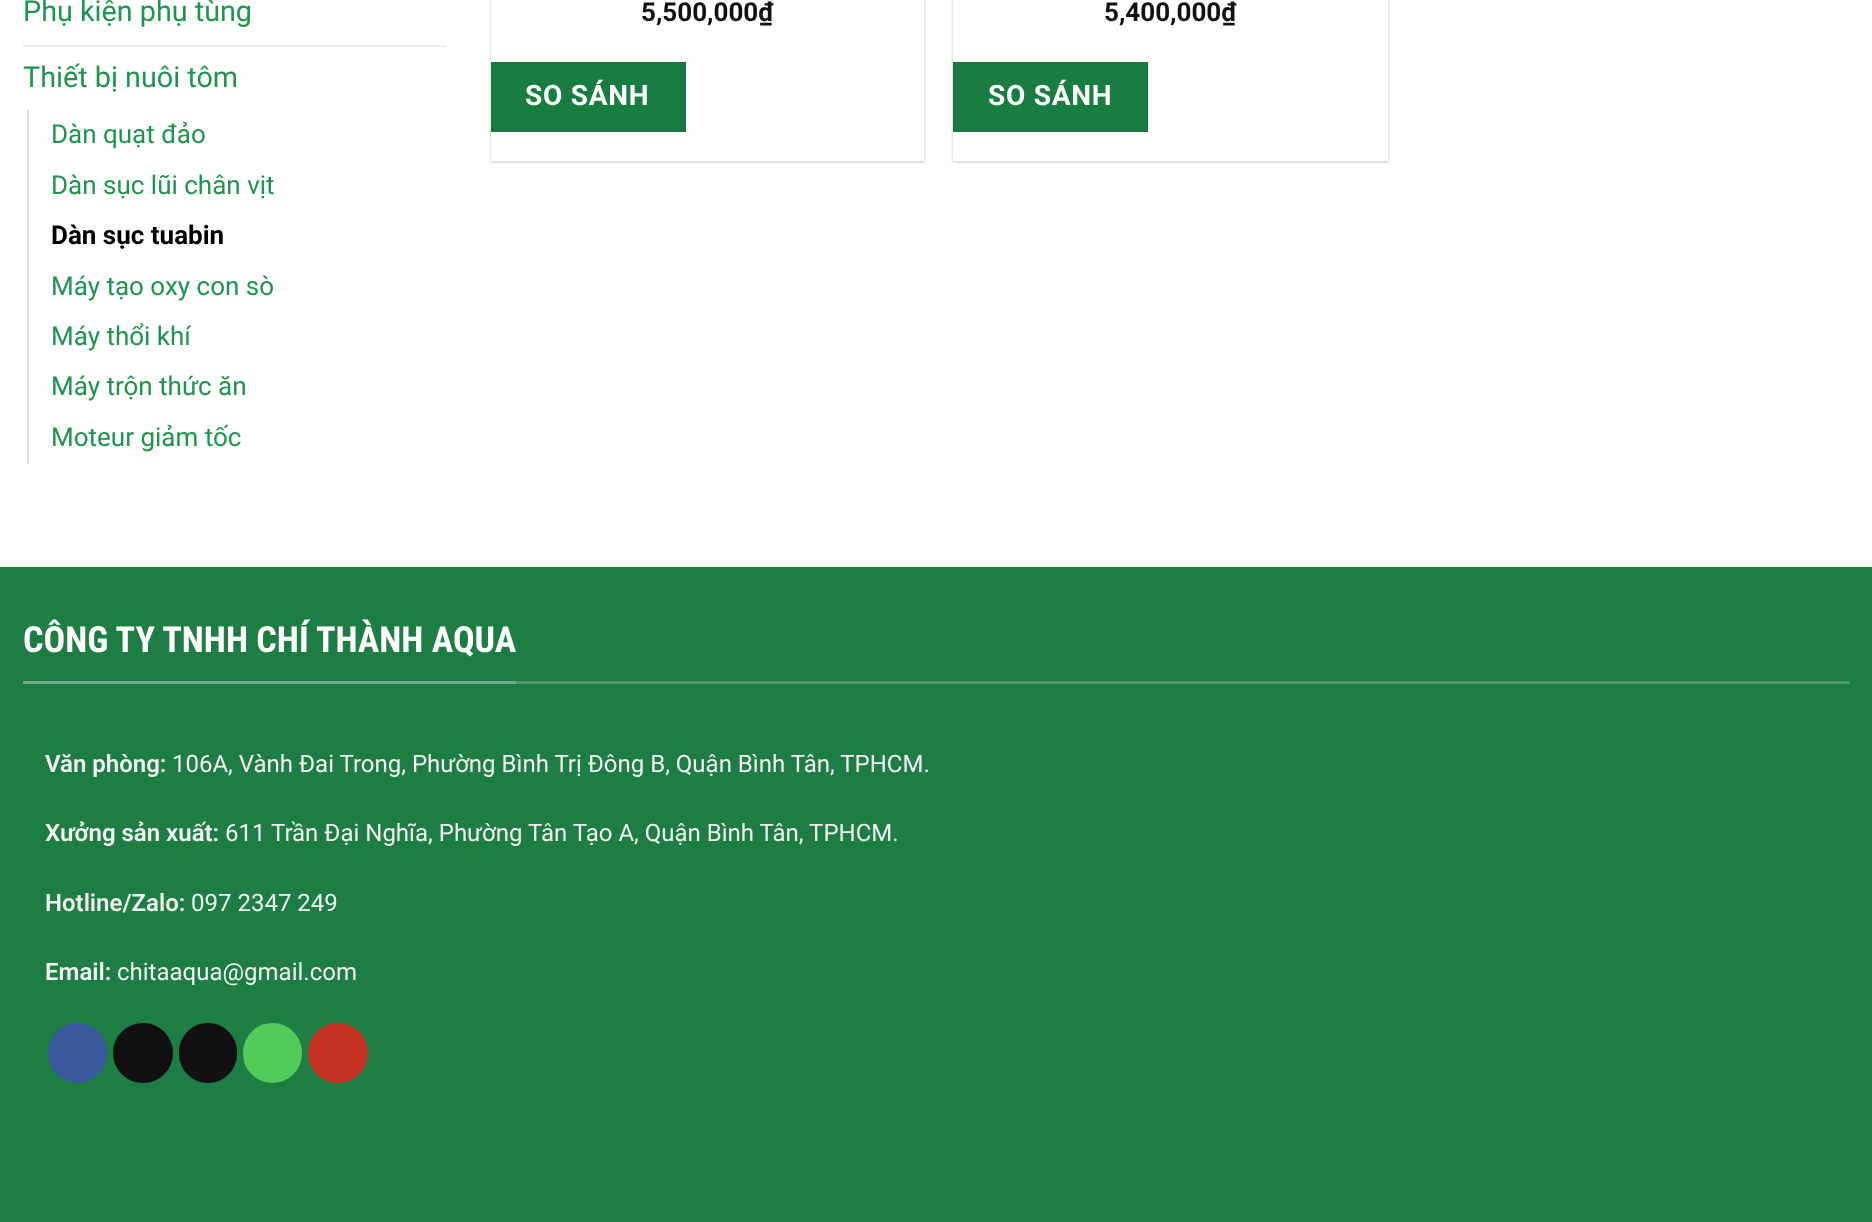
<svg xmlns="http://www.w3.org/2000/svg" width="1872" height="1222">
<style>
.a{font:28.75px Roboto;fill:#1e944d}
.b{font:26px Roboto;fill:#1e944d}
.c{font:bold 26px Roboto;fill:#000}
.d{font:bold 26px Roboto;fill:#111}
.e{font:bold 28px Roboto;letter-spacing:0.75px;fill:#fff}
.f{font:bold 36px Roboto Condensed;fill:#fff}
.g{font:600 24px Roboto;fill:#f1f1f1}
.h{font:24px Roboto;fill:#f1f1f1}
</style>
<rect width="100%" height="100%" fill="#fff"/>
<path fill="#ececec" d="M23 45h423v2H23z"/>
<path fill="#ddd" d="M27 110h2v354H27z"/>
<path fill="#0000003d" filter="blur(1.5px)" d="M491 -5h433v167H491z"/>
<path fill="#fff" d="M491 0h433v161H491z"/>
<path fill="#197d41" stroke="#18773e" stroke-width="2" d="M492 63h193v68H492z"/>
<path fill="#0000003d" filter="blur(1.5px)" d="M953 -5h435v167H953z"/>
<path fill="#fff" d="M953 0h435v161H953z"/>
<path fill="#197d41" stroke="#18773e" stroke-width="2" d="M954 63h193v68H954z"/>
<path fill="#1e7d43" d="M0 567h1872v655H0z"/>
<path fill="#4b9769" d="M516 681h1334v3H516z"/>
<path fill="#6fac87" d="M23 681h493v3H23z"/>
<rect fill="#3a589d" stroke="#3a589d" stroke-width="2" x="49" y="1024" width="57" height="58" rx="28.5"/>
<circle fill="#111" stroke="#111" stroke-width="2" cx="143" cy="1053" r="29"/>
<rect fill="#111" stroke="#111" stroke-width="2" x="180" y="1024" width="56" height="58" rx="28"/>
<rect fill="#51cb5a" stroke="#51cb5a" stroke-width="2" x="244" y="1024" width="57" height="58" rx="28.5"/>
<circle fill="#c33223" stroke="#c33223" stroke-width="2" cx="338" cy="1053" r="29"/>
<text class="a" x="23" y="21">Phụ kiện phụ tùng</text>
<text class="a" x="23" y="87">Thiết bị nuôi tôm</text>
<text class="b" x="51" y="143">Dàn quạt đảo</text>
<text class="b" x="51" y="194">Dàn sục lũi chân vịt</text>
<text class="c" x="51" y="244">Dàn sục tuabin</text>
<text class="b" x="51" y="295">Máy tạo oxy con sò</text>
<text class="b" x="51" y="345">Máy thổi khí</text>
<text class="b" x="51" y="395">Máy trộn thức ăn</text>
<text class="b" x="51" y="446">Moteur giảm tốc</text>
<text class="d" x="641" y="21">5,500,000₫</text>
<text class="e" x="525" y="105">SO SÁNH</text>
<text class="d" x="1104" y="21">5,400,000₫</text>
<text class="e" x="988" y="105">SO SÁNH</text>
<text class="f" x="23" y="652">CÔNG TY TNHH CHÍ THÀNH AQUA</text>
<text class="g" x="45" y="772">Văn phòng:</text>
<text class="h" x="172" y="772">106A, Vành Đai Trong, Phường Bình Trị Đông B, Quận Bình Tân, TPHCM.</text>
<text class="g" x="45" y="841">Xưởng sản xuất:</text>
<text class="h" x="225" y="841">611 Trần Đại Nghĩa, Phường Tân Tạo A, Quận Bình Tân, TPHCM.</text>
<text class="g" x="45" y="911">Hotline/Zalo:</text>
<text class="h" x="191" y="911">097 2347 249</text>
<text class="g" x="45" y="980">Email:</text>
<text class="h" x="117" y="980">chitaaqua@gmail.com</text>
</svg>
